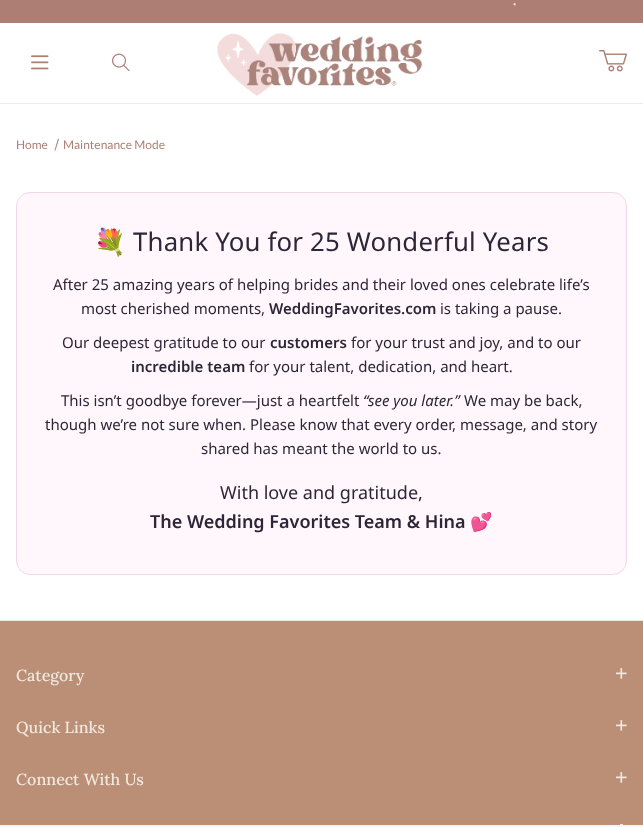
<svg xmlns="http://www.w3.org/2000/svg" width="643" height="827">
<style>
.a{font:bold 14px Lora;fill:#f1e8e1}
.b{font:12px Lato;fill:#ad7f74}
.c{font:25.75px Noto Color Emoji;letter-spacing:0.2px;fill:#2c2738}
.d{font:25.75px Noto Sans;letter-spacing:0.2px;fill:#2c2738}
.e{font:15px Noto Sans;fill:#2c2738}
.f{font:600 15px Noto Sans;fill:#2c2738}
.g{font:italic 15px Noto Sans;fill:#2c2738}
.h{font:18px Noto Sans;fill:#2c2738}
.i{font:600 18px Noto Sans;fill:#2c2738}
.j{font:18px Noto Color Emoji;fill:#2c2738}
.k{font:500 16px Lora;fill:#f1e8e1}
</style>
<rect width="100%" height="100%" fill="#fff"/>
<path fill="#eaeaea" d="M0 103h643v1H0z"/>
<path fill="#ad7f74" d="M0 0h643v23H0z"/>
<image href="1.png" x="31" y="55" width="18" height="15"/>
<image href="2.png" x="112" y="53" width="18" height="18"/>
<image href="3.png" x="217" y="33" width="205" height="63"/>
<image href="4.png" x="599" y="50" width="28" height="22"/>
<path fill="#ad7f74" d="M58 138.5l1 .5l-3.5 11.5h-1z"/>
<rect fill="#fff7fb" stroke="#f2d7ea" x="16.5" y="192.5" width="610" height="382" rx="13.5"/>
<path fill="#bb8f75" d="M0 621h643v204H0z"/>
<path fill="#eaeaea" d="M0 620h643v1H0z"/>
<image href="5.png" x="616" y="668" width="11" height="11"/>
<image href="5.png" x="616" y="720" width="11" height="11"/>
<image href="5.png" x="616" y="772" width="11" height="11"/>
<path fill="#f1e8e1" d="M620 824h3v1H620z"/>
<path fill="#f5f5f5" d="M0 825h643v2H0z"/>
<text class="a" x="513" y="5">.</text>
<text class="b" x="16" y="149">Home</text>
<text class="b" x="63" y="149">Maintenance Mode</text>
<text class="c" x="94" y="251">💐</text>
<text class="d" x="133" y="251">Thank You for 25 Wonderful Years</text>
<text class="e" x="53" y="290">After 25 amazing years of helping brides and their loved ones celebrate life’s</text>
<text class="e" x="81" y="314">most cherished moments,</text>
<text class="f" x="269" y="314">WeddingFavorites.com</text>
<text class="e" x="440" y="314">is taking a pause.</text>
<text class="e" x="62" y="348">Our deepest gratitude to our</text>
<text class="f" x="270" y="348">customers</text>
<text class="e" x="351" y="348">for your trust and joy, and to our</text>
<text class="f" x="131" y="372">incredible team</text>
<text class="e" x="249" y="372">for your talent, dedication, and heart.</text>
<text class="e" x="61" y="406">This isn’t goodbye forever—just a heartfelt</text>
<text class="g" x="363" y="406">“see you later.”</text>
<text class="e" x="464" y="406">We may be back,</text>
<text class="e" x="45" y="430">though we’re not sure when. Please know that every order, message, and story</text>
<text class="e" x="201" y="454">shared has meant the world to us.</text>
<text class="h" x="220" y="499">With love and gratitude,</text>
<text class="i" x="150" y="528">The Wedding Favorites Team &amp; Hina</text>
<text class="j" x="470" y="528">💕</text>
<text class="k" x="16" y="681">Category</text>
<text class="k" x="16" y="733">Quick Links</text>
<text class="k" x="16" y="785">Connect With Us</text>
</svg>
